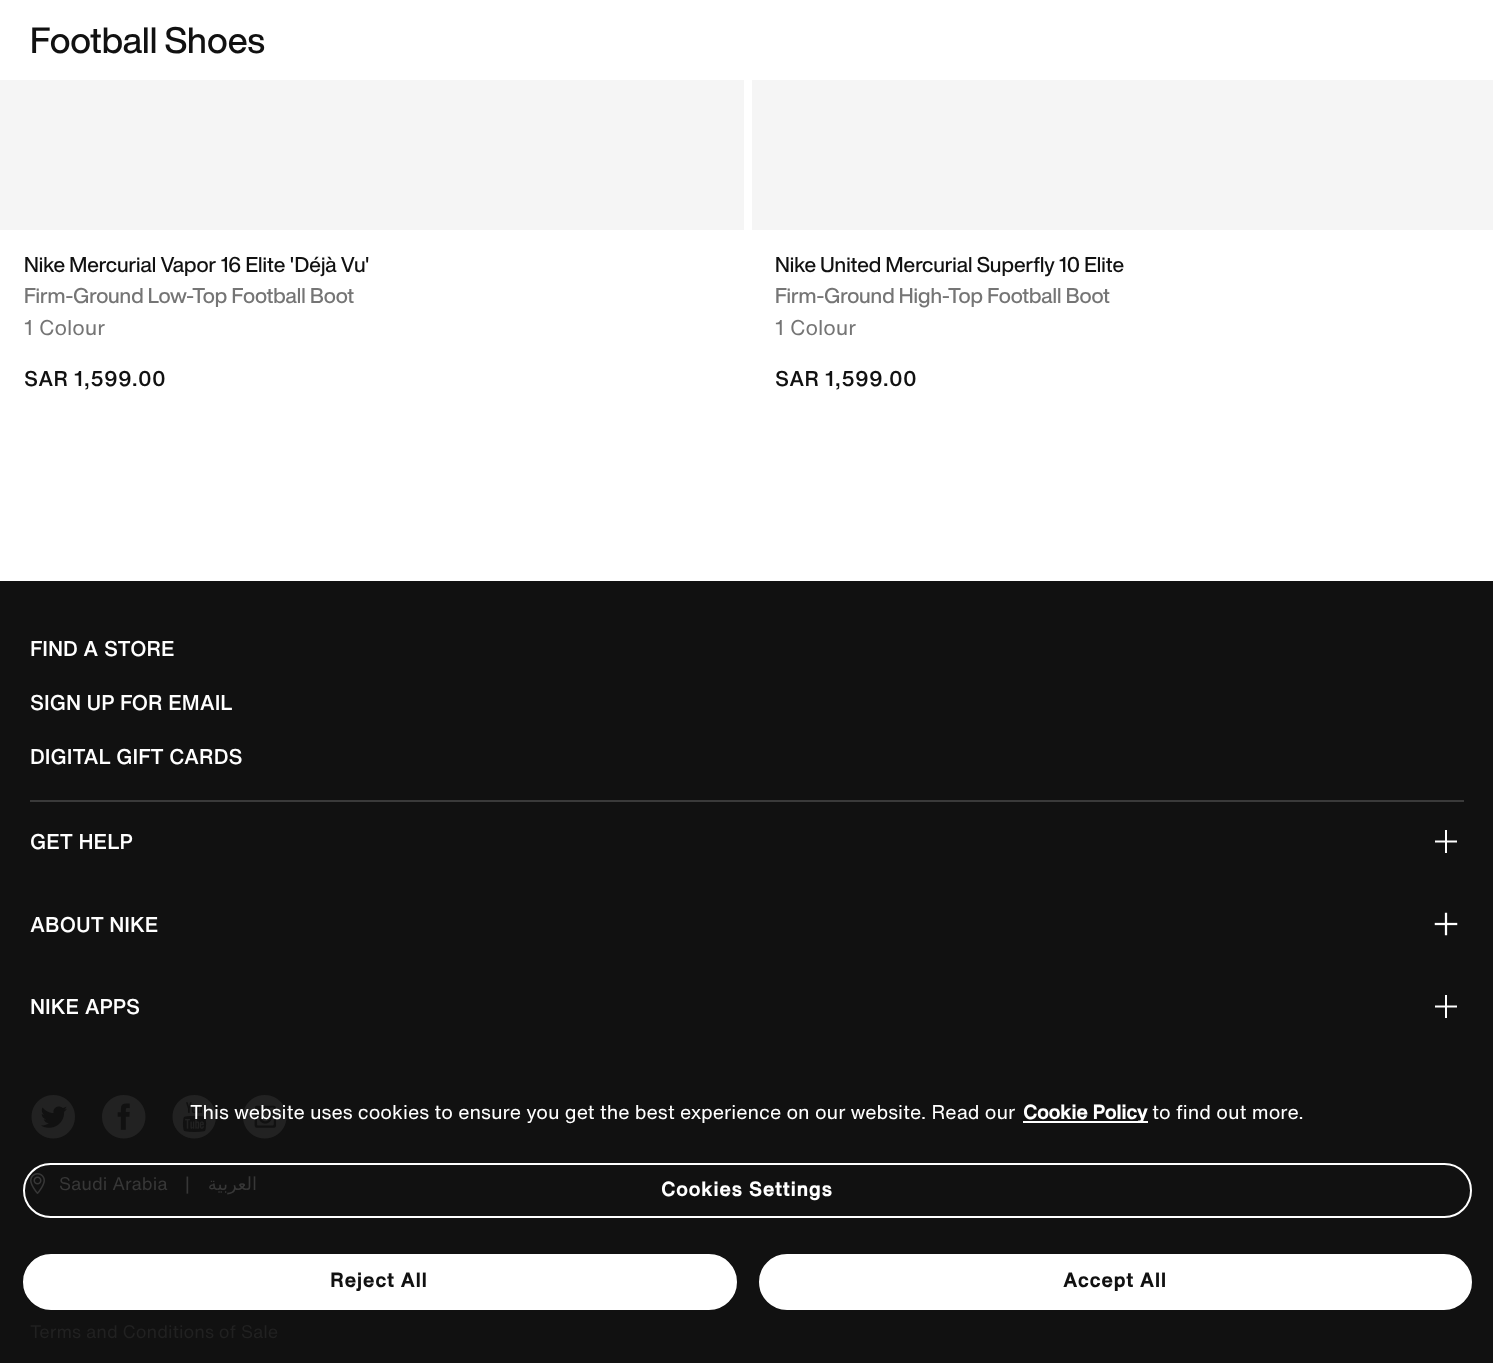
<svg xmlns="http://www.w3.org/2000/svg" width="1493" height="1363">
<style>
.a{font:500 36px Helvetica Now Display;fill:#111}
.b{font:500 21px Helvetica Now Display;fill:#111}
.c{font:500 21px Helvetica Now Display;fill:#757575}
.d{font:21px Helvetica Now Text;fill:#757575}
.e{font:500 21px Helvetica Now Text;letter-spacing:0.25px;fill:#111}
.f{font:500 21px Helvetica Now Text;fill:#fff}
.g{font:18px Helvetica Now Text;fill:#373737}
.h{font:18px DejaVu Sans;direction:rtl;fill:#373737}
.i{font:18px Helvetica Now Text;fill:#212121}
.j{font:19.5px Helvetica Now Text;fill:#fff}
.k{font:bold 19.5px Helvetica Now Text;fill:#fff}
.l{font:bold 19.5px Helvetica Now Text;letter-spacing:1px;fill:#fff}
.m{font:bold 19.5px Helvetica Now Text;letter-spacing:1px;fill:#111}
</style>
<rect width="100%" height="100%" fill="#fff"/>
<path fill="#f5f5f5" d="M0 80h744v150H0z"/>
<path fill="#f5f5f5" d="M752 80h741v150H752z"/>
<path fill="#111" d="M0 581h1493v782H0z"/>
<path fill="#3a3a3a" d="M30 800h1434v2H30z"/>
<path fill="#fff" d="M1435 840.5h22v2h-22zm12-10.5v23h-2v-23z"/>
<image href="1.png" x="1434" y="912" width="24" height="24"/>
<path fill="#fff" d="M1435 1005.5h22v2h-22zm12-10.5v23h-2v-23z"/>
<image href="2.png" x="31" y="1095" width="44" height="44"/>
<image href="3.png" x="102" y="1095" width="44" height="44"/>
<image href="4.png" x="172" y="1095" width="44" height="44"/>
<image href="5.png" x="243" y="1095" width="44" height="44"/>
<image href="6.png" x="30" y="1173" width="15" height="21"/>
<path fill="#fff" d="M1023 1121h125v2H1023z"/>
<rect fill="none" stroke="#fff" stroke-width="2" x="24" y="1164" width="1447" height="53" rx="26.5"/>
<rect fill="#fff" stroke="#fff" stroke-width="2" x="24" y="1255" width="712" height="54" rx="27"/>
<rect fill="#fff" stroke="#fff" stroke-width="2" x="760" y="1255" width="711" height="54" rx="27"/>
<text class="a" x="30" y="53">Football Shoes</text>
<text class="b" x="24" y="272">Nike Mercurial Vapor 16 Elite 'Déjà Vu'</text>
<text class="c" x="24" y="303">Firm-Ground Low-Top Football Boot</text>
<text class="d" x="24" y="335">1 Colour</text>
<text class="e" x="24" y="386">SAR 1,599.00</text>
<text class="b" x="775" y="272">Nike United Mercurial Superfly 10 Elite</text>
<text class="c" x="775" y="303">Firm-Ground High-Top Football Boot</text>
<text class="d" x="775" y="335">1 Colour</text>
<text class="e" x="775" y="386">SAR 1,599.00</text>
<text class="f" x="30" y="656">FIND A STORE</text>
<text class="f" x="30" y="710">SIGN UP FOR EMAIL</text>
<text class="f" x="30" y="764">DIGITAL GIFT CARDS</text>
<text class="f" x="30" y="849">GET HELP</text>
<text class="f" x="30" y="932">ABOUT NIKE</text>
<text class="f" x="30" y="1014">NIKE APPS</text>
<text class="g" x="59" y="1190">Saudi Arabia</text>
<text class="g" x="185" y="1190">|</text>
<text class="h" x="257" y="1190">العربية</text>
<text class="i" x="30" y="1338">Terms and Conditions of Sale</text>
<text class="j" x="190" y="1119">This website uses cookies to ensure you get the best experience on our website. Read our</text>
<text class="k" x="1023" y="1119">Cookie Policy</text>
<text class="j" x="1152" y="1119">to find out more.</text>
<text class="l" x="661" y="1196">Cookies Settings</text>
<text class="m" x="330" y="1287">Reject All</text>
<text class="m" x="1063" y="1287">Accept All</text>
</svg>
